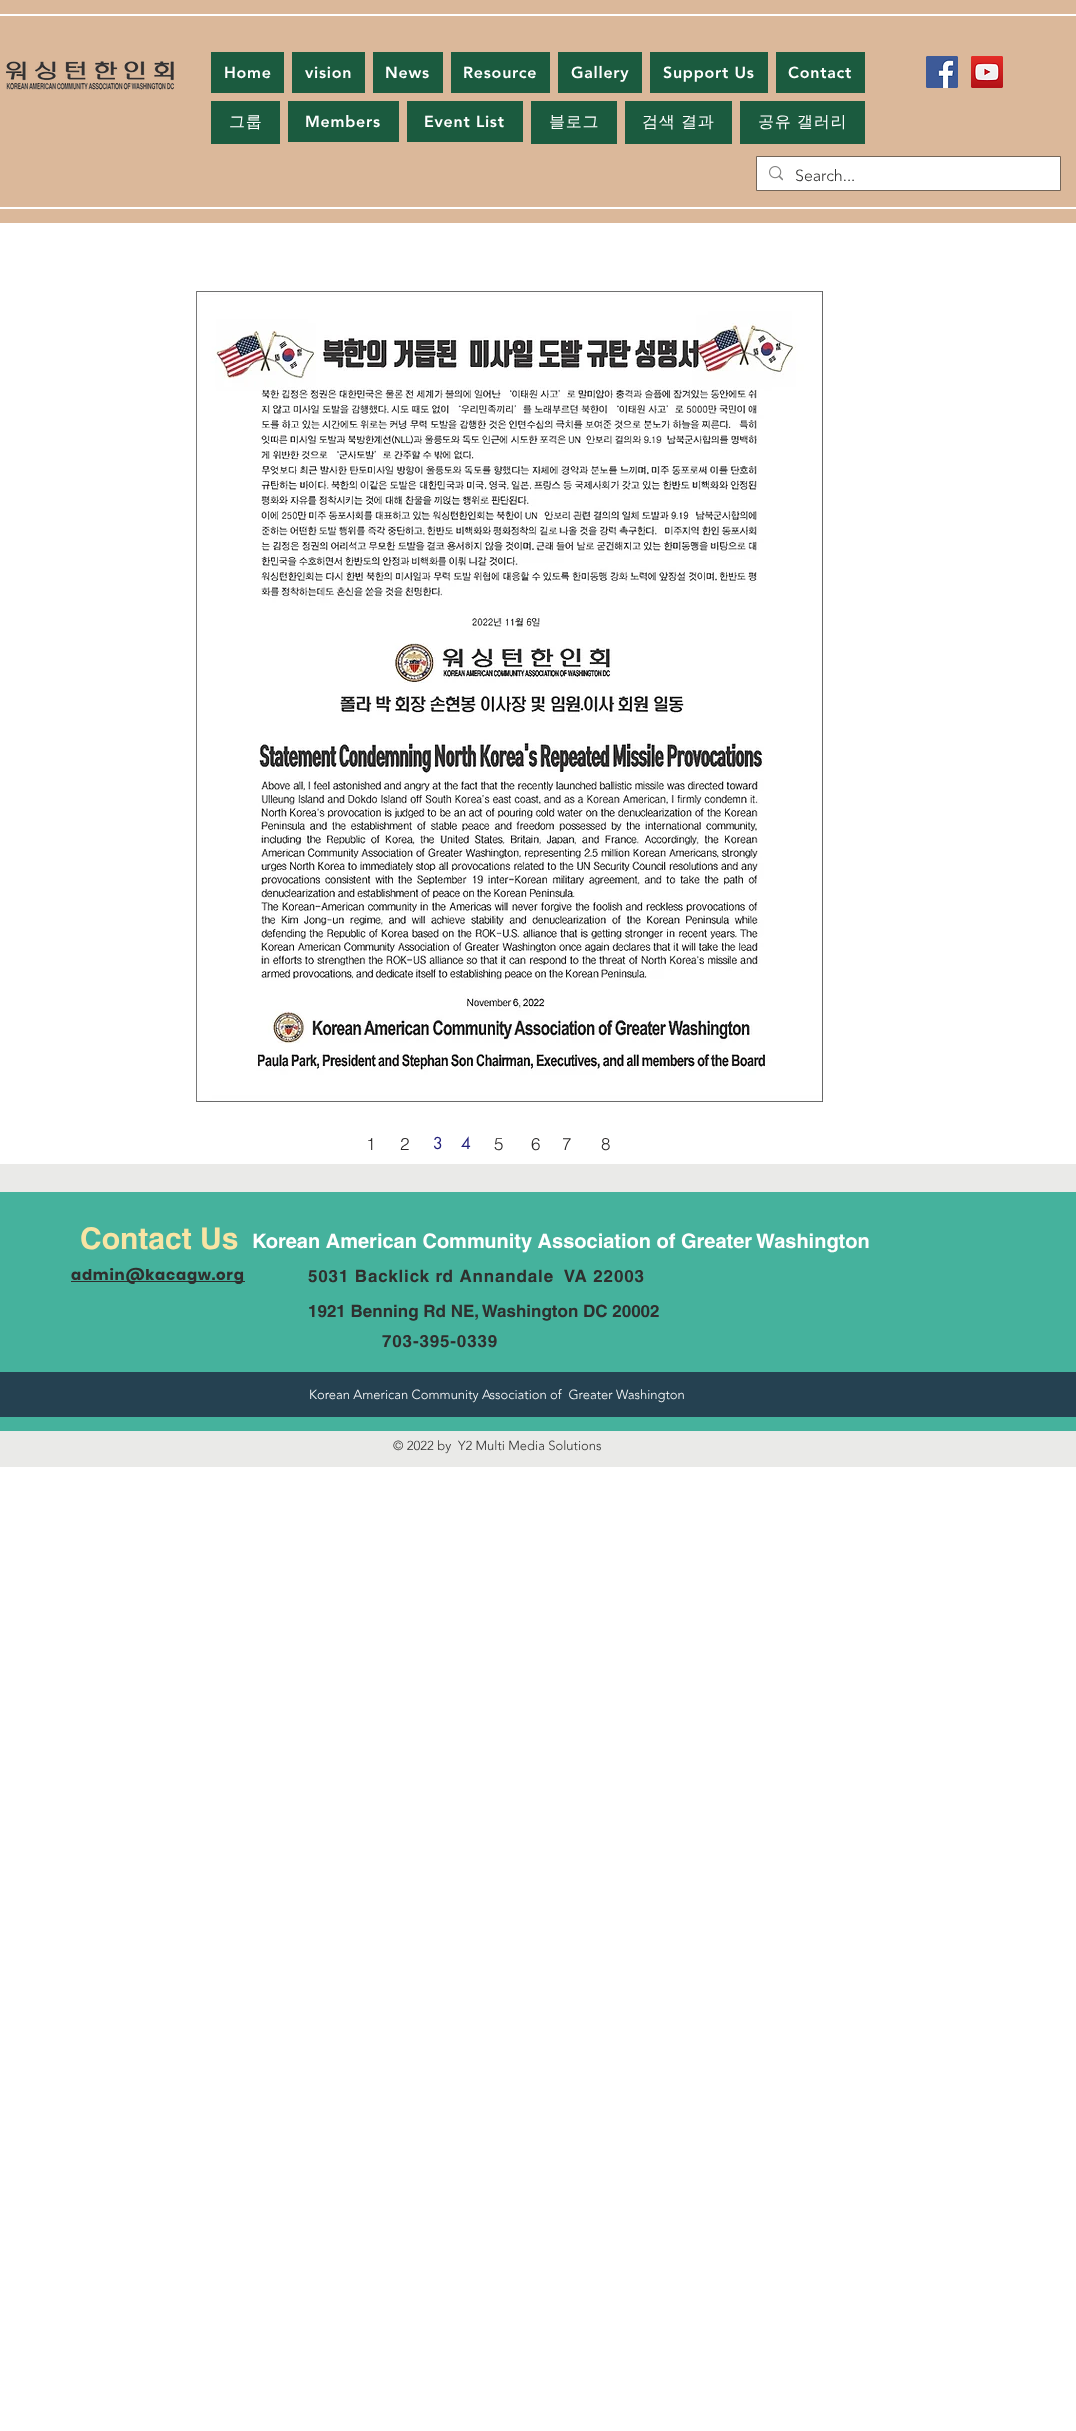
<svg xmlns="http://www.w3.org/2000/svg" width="1076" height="2431">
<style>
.a{font:900 16px 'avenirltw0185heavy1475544';letter-spacing:0.75px;fill:#fff}
.b{font:500 16px WenQuanYi Zen Hei;letter-spacing:0.75px;fill:#fff}
.c{font:300 16px 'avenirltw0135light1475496';fill:#2f2f2e}
.d{font:300 17px helvetica;fill:#282626}
.e{font:16px futura;letter-spacing:2px;fill:#221f7b}
.f{font:bold 30px helvetica;fill:#f8e4a4}
.g{font:bold 20px helvetica;fill:#fff}
.h{font:bold 15px Poppins;letter-spacing:0.75px;fill:#2f2f2e}
.i{font:bold 17px helvetica;letter-spacing:0.85px;fill:#2f2f2e}
.j{font:bold 17px helvetica;fill:#2f2f2e}
.k{font:300 13px 'avenirltw0135light1475496';fill:#fff}
.l{font:300 13px 'avenirltw0135light1475496';fill:#2f2f2e}
</style>
<rect width="100%" height="100%" fill="#fff"/>
<path fill="#dbb89a" d="M0 0h1076v223H0z"/>
<path fill="#fff" d="M0 14h1076v2H0z"/>
<path fill="#fff" d="M0 207h1076v2H0z"/>
<image href="1.png" x="6" y="61" width="168" height="29"/>
<path fill="#1b5b3f" d="M211 52h73v41H211z"/>
<path fill="#1b5b3f" d="M292 52h73v41H292z"/>
<path fill="#1b5b3f" d="M373 52h70v41H373z"/>
<path fill="#1b5b3f" d="M451 52h99v41H451z"/>
<path fill="#1b5b3f" d="M558 52h84v41H558z"/>
<path fill="#1b5b3f" d="M650 52h118v41H650z"/>
<path fill="#1b5b3f" d="M776 52h89v41H776z"/>
<path fill="#1b5b3f" d="M211 101h69v43H211z"/>
<path fill="#1b5b3f" d="M288 101h111v41H288z"/>
<path fill="#1b5b3f" d="M407 101h116v41H407z"/>
<path fill="#1b5b3f" d="M531 101h86v43H531z"/>
<path fill="#1b5b3f" d="M625 101h107v43H625z"/>
<path fill="#1b5b3f" d="M740 101h125v43H740z"/>
<image href="2.png" x="926" y="56" width="32" height="32"/>
<image href="3.png" x="971" y="56" width="32" height="32"/>
<path fill="none" stroke="#746659" d="M756.5 156.5h304v34H756.5z"/>
<path fill="#fff" d="M757 157h303v33H757z"/>
<image href="4.png" x="769" y="166" width="14" height="15"/>
<image href="5.png" x="196" y="291" width="627" height="811"/>
<path fill="#eaeae8" d="M0 1164h1076v303H0z"/>
<path fill="#45b29d" d="M0 1192h1076v239H0z"/>
<path fill="#2f2f2e" d="M71 1281h174v1H71z"/>
<path fill="#254151" d="M0 1372h1076v45H0z"/>
<text class="a" x="224" y="78">Home</text>
<text class="a" x="305" y="78">vision</text>
<text class="a" x="385" y="78">News</text>
<text class="a" x="463" y="78">Resource</text>
<text class="a" x="571" y="78">Gallery</text>
<text class="a" x="663" y="78">Support Us</text>
<text class="a" x="788" y="78">Contact</text>
<text class="b" x="229" y="127">그룹</text>
<text class="a" x="305" y="127">Members</text>
<text class="a" x="424" y="127">Event List</text>
<text class="b" x="549" y="127">블로그</text>
<text class="b" x="642" y="127">검색 결과</text>
<text class="b" x="758" y="127">공유 갤러리</text>
<text class="c" x="795" y="181">Search...</text>
<text class="d" x="366" y="1150">1</text>
<text class="d" x="400" y="1150">2</text>
<text class="e" x="433" y="1149">3</text>
<text class="e" x="461" y="1149">4</text>
<text class="d" x="494" y="1150">5</text>
<text class="d" x="531" y="1150">6</text>
<text class="d" x="562" y="1150">7</text>
<text class="d" x="601" y="1150">8</text>
<text class="f" x="80" y="1249">Contact Us</text>
<text class="g" x="252" y="1248">Korean American Community Association of Greater Washington</text>
<text class="h" x="71" y="1280">admin@kacagw.org</text>
<text class="i" xml:space="preserve" x="308" y="1282">5031 Backlick rd Annandale  VA 22003</text>
<text class="j" x="308" y="1317">1921 Benning Rd NE, Washington DC 20002</text>
<text class="i" x="382" y="1347">703-395-0339</text>
<text class="k" xml:space="preserve" x="309" y="1399">Korean American Community Association of  Greater Washington</text>
<text class="l" xml:space="preserve" x="393" y="1450">© 2022 by  Y2 Multi Media Solutions</text>
</svg>
